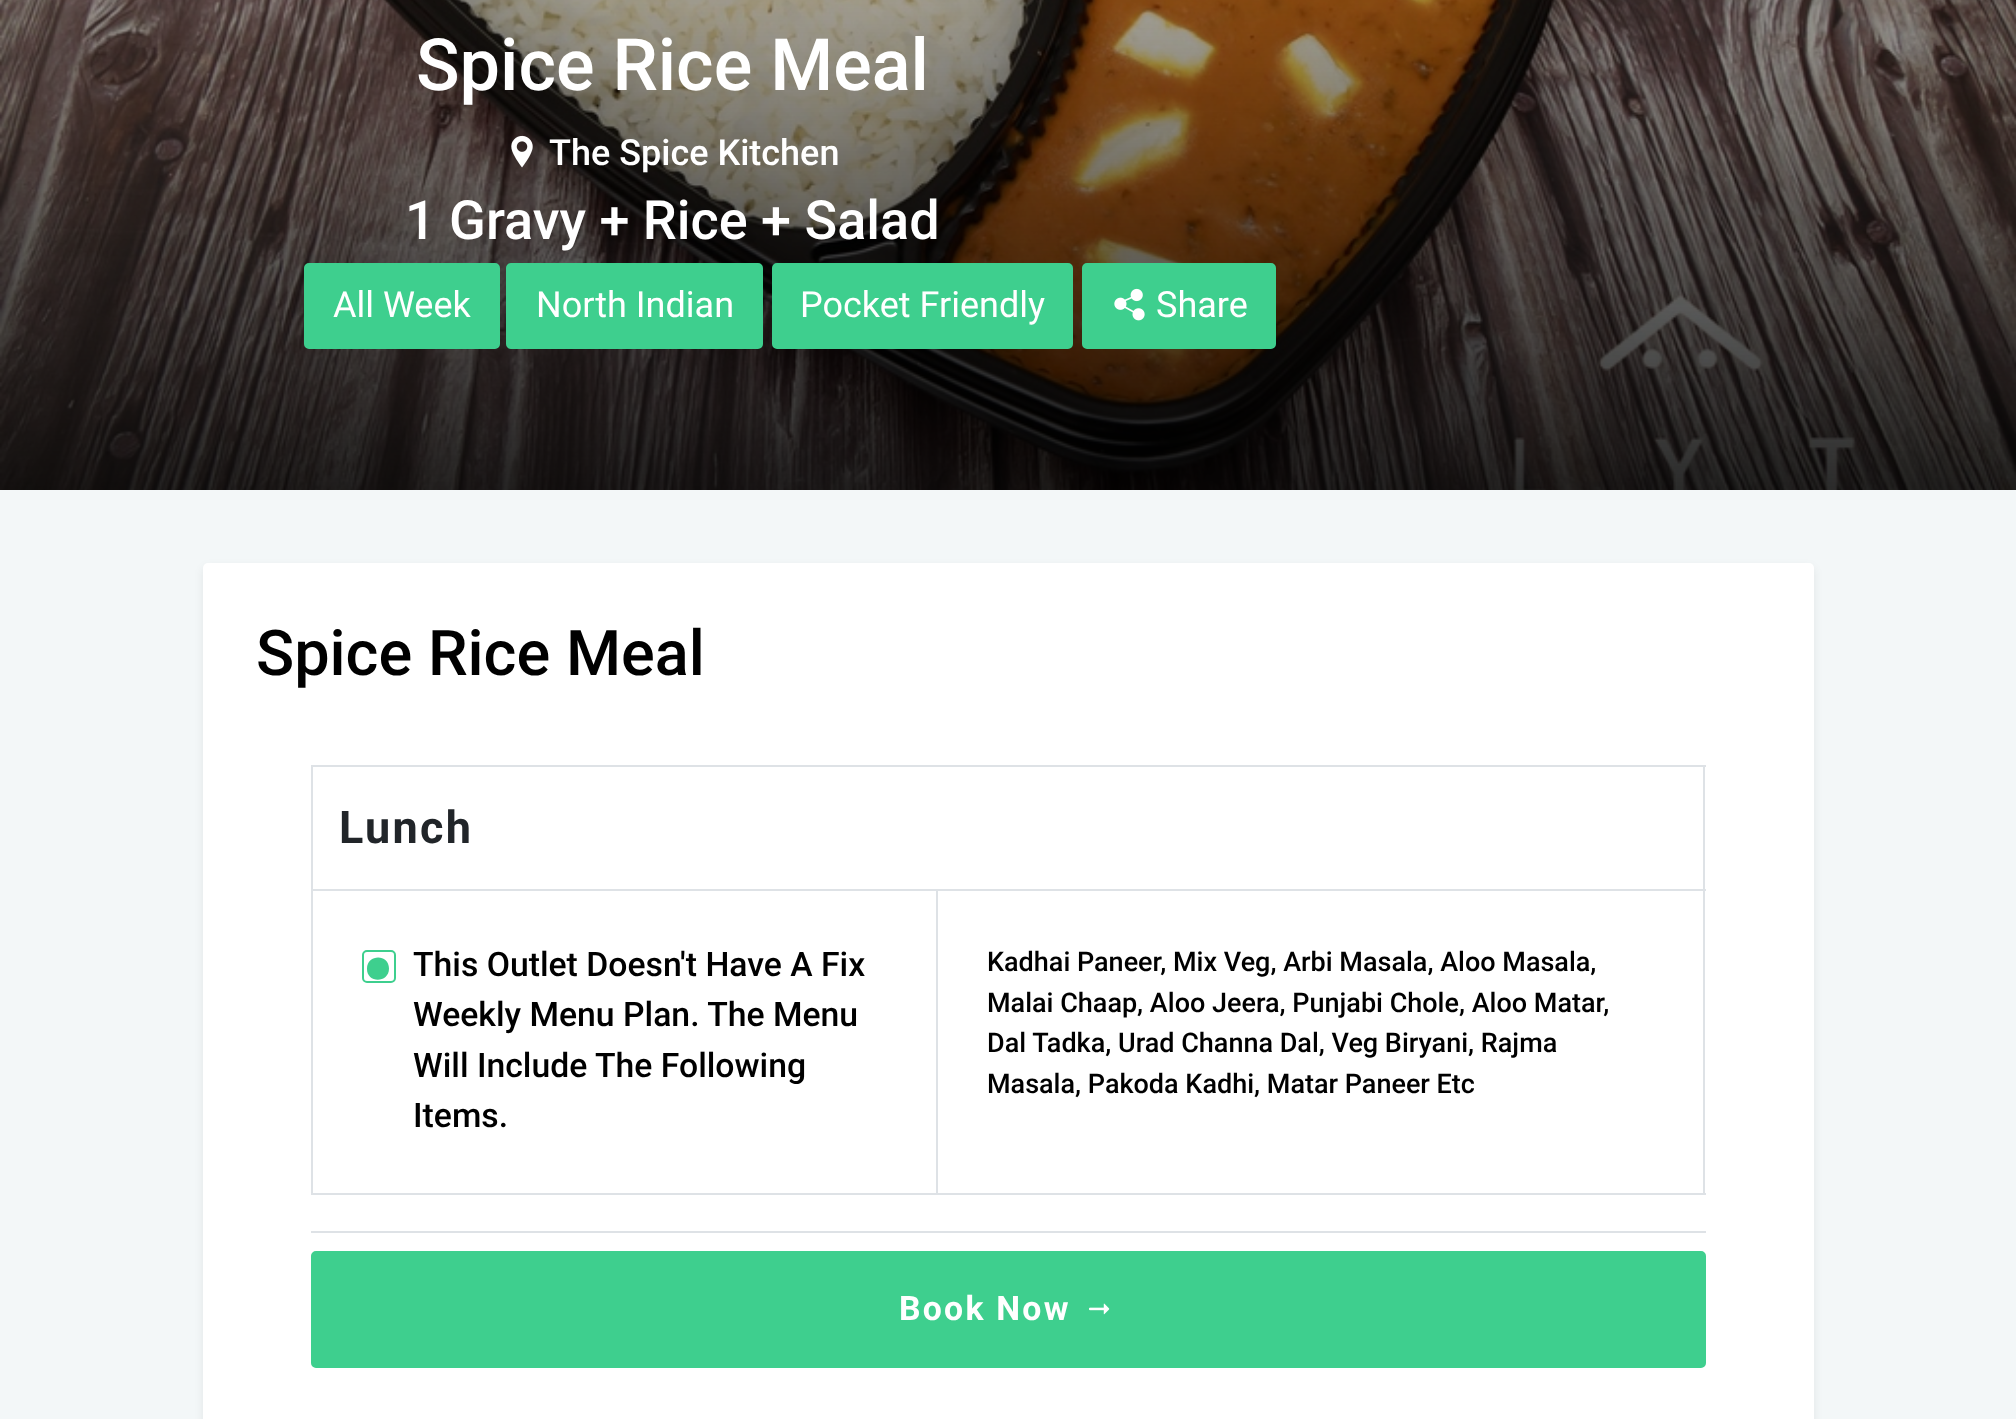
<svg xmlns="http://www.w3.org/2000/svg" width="2016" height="1419">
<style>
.a{font:500 72px Roboto;fill:#fff}
.b{font:500 36px Roboto;fill:#fff}
.c{font:500 54px Roboto;fill:#fff}
.d{font:36px Roboto;fill:#fff}
.e{font:500 63px Roboto;fill:#000}
.f{font:bold 45px Roboto;letter-spacing:2.25px;fill:#212529}
.g{font:500 33.75px Roboto;fill:#000}
.h{font:500 27px Roboto;fill:#000}
.i{font:bold 33.75px Roboto;letter-spacing:2.25px;fill:#fff}
</style>
<rect width="100%" height="100%" fill="#f3f7f8"/>
<image href="1.png" x="0" y="0" width="2016" height="490"/>
<image href="2.png" x="511" y="135" width="22" height="33"/>
<rect fill="#3ecf8e" stroke="#3ecf8e" stroke-width="2" x="305" y="264" width="194" height="84" rx="4"/>
<rect fill="#3ecf8e" stroke="#3ecf8e" stroke-width="2" x="507" y="264" width="255" height="84" rx="4"/>
<rect fill="#3ecf8e" stroke="#3ecf8e" stroke-width="2" x="773" y="264" width="299" height="84" rx="4"/>
<rect fill="#3ecf8e" stroke="#3ecf8e" stroke-width="2" x="1083" y="264" width="192" height="84" rx="4"/>
<image href="3.png" x="1114" y="288" width="31" height="33"/>
<rect fill="#00000012" filter="blur(4.5px)" x="203" y="567" width="1611" height="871" rx="5"/>
<rect fill="#fff" x="203" y="563" width="1611" height="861" rx="5"/>
<path fill="#dee2e6" d="M311 1231h1395v2H311z"/>
<path fill="#dee2e6" d="M311 765h1395v2H311z"/>
<path fill="#dee2e6" d="M1703 765h2v124H1703z"/>
<path fill="#dee2e6" d="M311 765h2v124H311z"/>
<path fill="#dee2e6" d="M311 889h1395v2H311z"/>
<path fill="#dee2e6" d="M1703 889h2v306H1703z"/>
<path fill="#dee2e6" d="M311 1193h1395v2H311z"/>
<path fill="#dee2e6" d="M311 889h2v306H311z"/>
<rect fill="none" stroke="#3ecf8e" stroke-width="2" x="363" y="951" width="32" height="31" rx="4"/>
<path fill="#3ecf8e" d="M389 968.5c0-15-22-14.5-22 0c-.5 15 22 15 22 0z"/>
<path fill="#dee2e6" d="M936 889h2v306H936z"/>
<rect fill="#3ecf8e" stroke="#3ecf8e" stroke-width="2" x="312" y="1252" width="1393" height="115" rx="4"/>
<image href="4.png" x="1089" y="1303" width="21" height="12"/>
<text class="a" x="416" y="90">Spice Rice Meal</text>
<text class="b" x="549" y="165">The Spice Kitchen</text>
<text class="c" x="405" y="239">1 Gravy + Rice + Salad</text>
<text class="d" x="333" y="317">All Week</text>
<text class="d" x="536" y="317">North Indian</text>
<text class="d" x="800" y="317">Pocket Friendly</text>
<text class="d" x="1156" y="317">Share</text>
<text class="e" x="256" y="675">Spice Rice Meal</text>
<text class="f" x="339" y="843">Lunch</text>
<text class="g" x="413" y="976">This Outlet Doesn't Have A Fix</text>
<text class="g" x="413" y="1026">Weekly Menu Plan. The Menu</text>
<text class="g" x="413" y="1077">Will Include The Following</text>
<text class="g" x="413" y="1127">Items.</text>
<text class="h" x="987" y="971">Kadhai Paneer, Mix Veg, Arbi Masala, Aloo Masala,</text>
<text class="h" x="987" y="1012">Malai Chaap, Aloo Jeera, Punjabi Chole, Aloo Matar,</text>
<text class="h" x="987" y="1052">Dal Tadka, Urad Channa Dal, Veg Biryani, Rajma</text>
<text class="h" x="987" y="1093">Masala, Pakoda Kadhi, Matar Paneer Etc</text>
<text class="i" x="899" y="1320">Book Now</text>
</svg>
